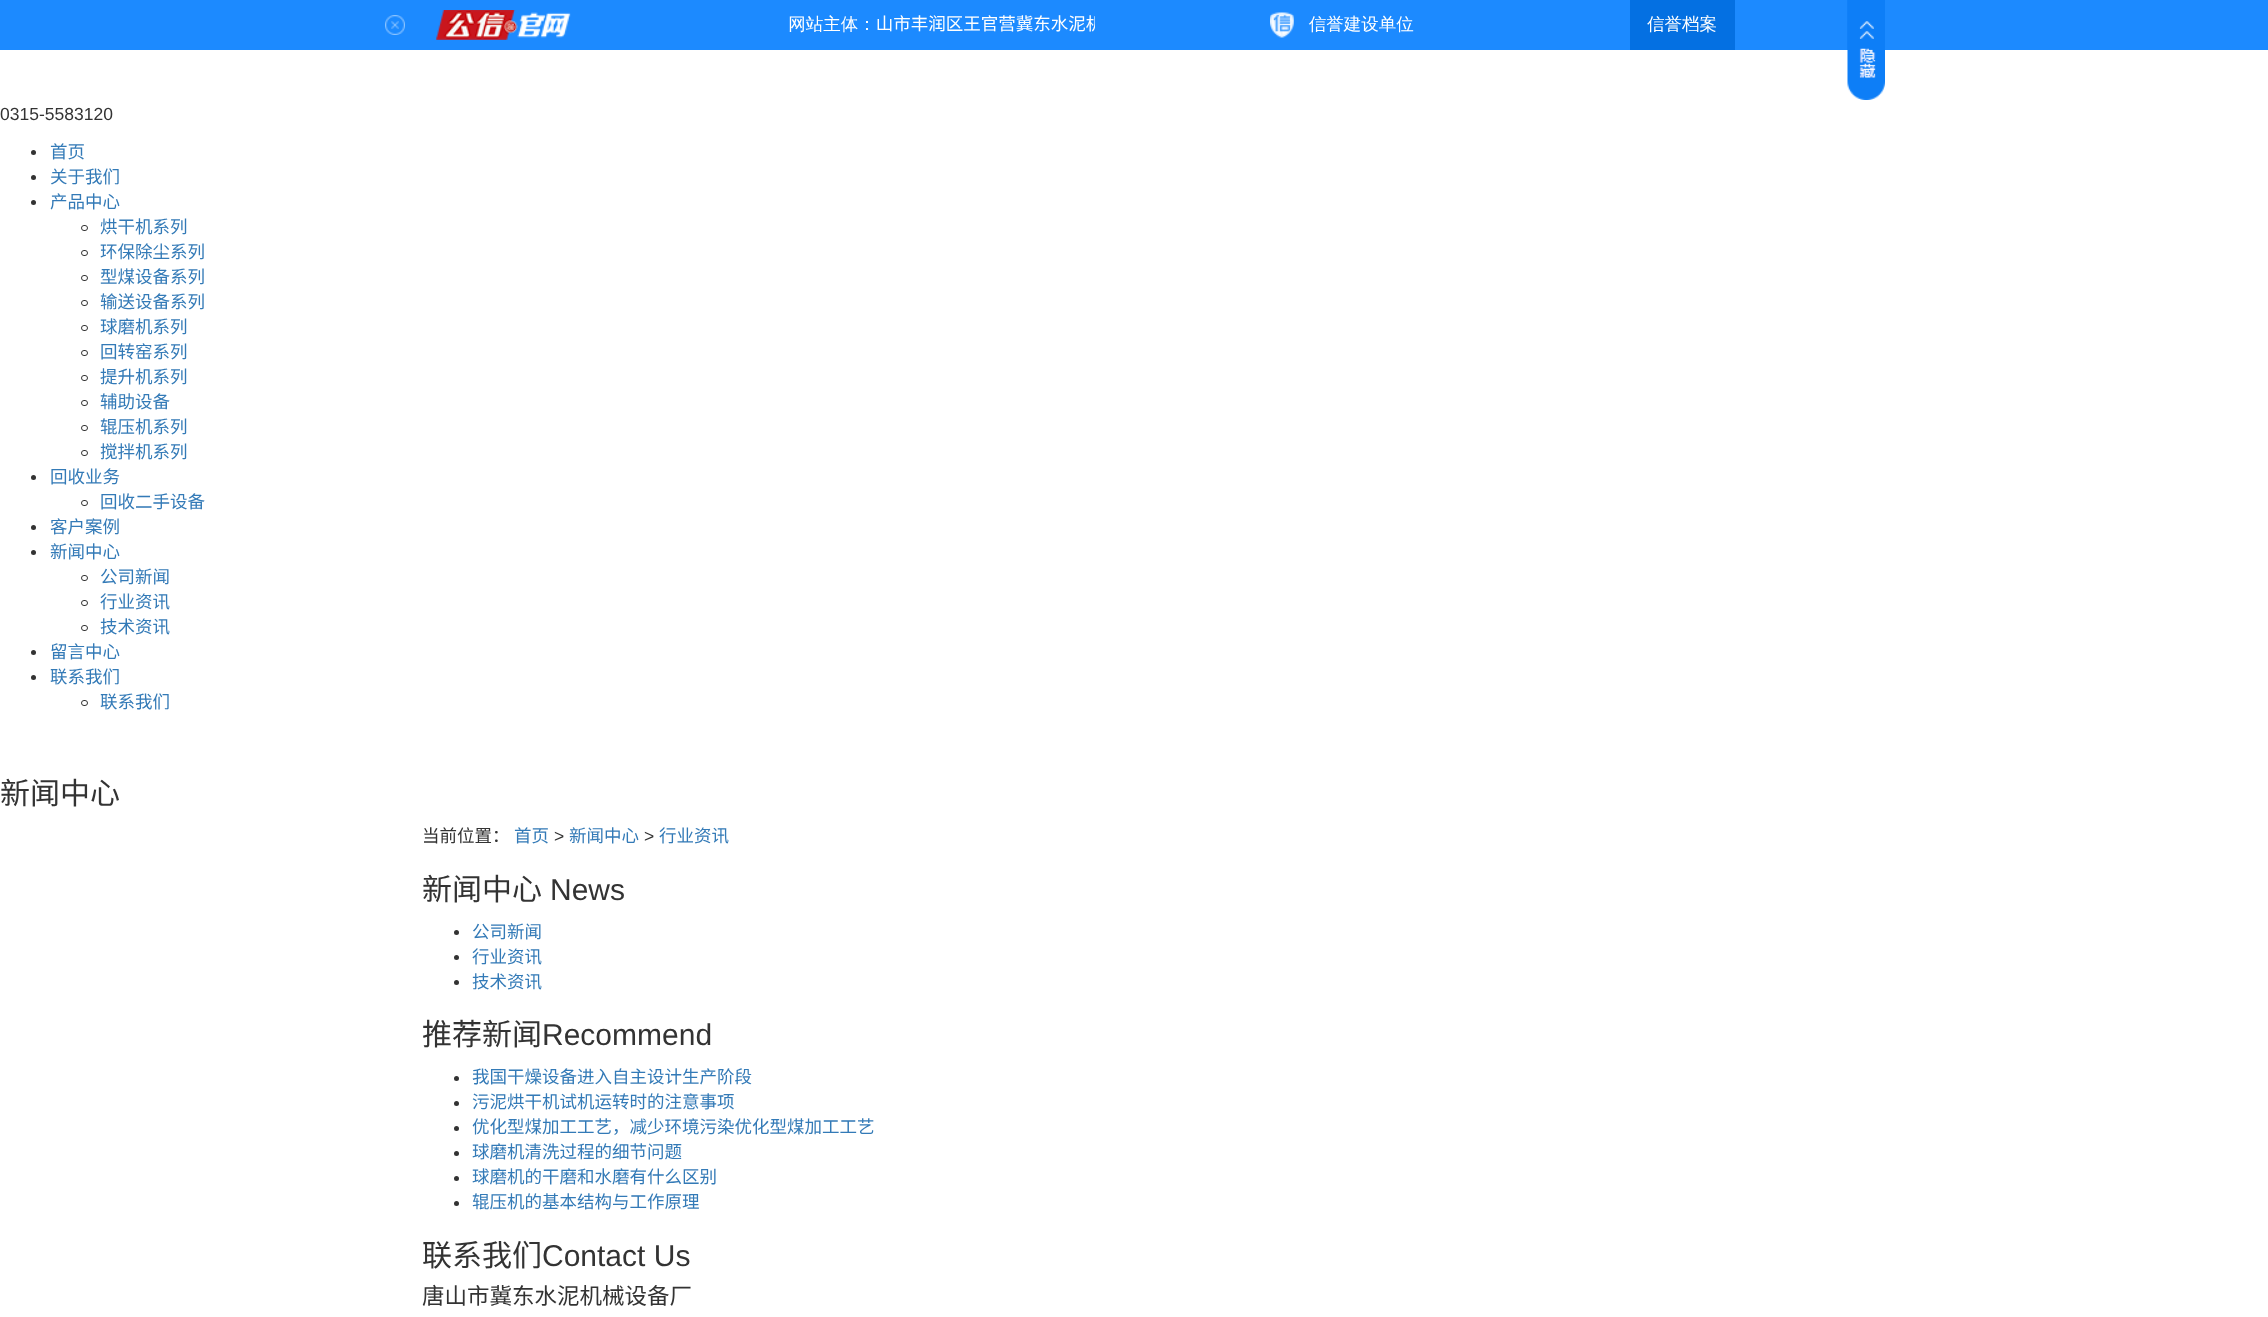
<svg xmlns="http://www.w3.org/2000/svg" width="2268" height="1317">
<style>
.a{font:17.5px Liberation Sans;fill:#333}
.b{font:17.5px Noto Sans CJK SC;fill:#337ab7}
.c{font:30px Noto Sans CJK SC;fill:#333}
.d{font:17.5px Noto Sans CJK SC;fill:#333}
.e{font:30px Liberation Sans;fill:#333}
.f{font:22.5px Noto Sans CJK SC;fill:#333}
</style>
<rect width="100%" height="100%" fill="#fff"/>
<image href="1.png" x="0" y="0" width="2268" height="50"/>
<image href="2.png" x="1847" y="0" width="38" height="100"/>
<circle fill="#333" cx="33.5" cy="152.5" r="2.5"/>
<circle fill="#333" cx="33.5" cy="177.5" r="2.5"/>
<circle fill="#333" cx="33.5" cy="202.5" r="2.5"/>
<rect fill="none" stroke="#333" x="81.5" y="225.5" width="6" height="5" rx="2.5"/>
<rect fill="none" stroke="#333" x="81.5" y="250.5" width="6" height="5" rx="2.5"/>
<rect fill="none" stroke="#333" x="81.5" y="275.5" width="6" height="5" rx="2.5"/>
<rect fill="none" stroke="#333" x="81.5" y="300.5" width="6" height="5" rx="2.5"/>
<rect fill="none" stroke="#333" x="81.5" y="325.5" width="6" height="5" rx="2.5"/>
<rect fill="none" stroke="#333" x="81.5" y="350.5" width="6" height="5" rx="2.5"/>
<rect fill="none" stroke="#333" x="81.5" y="375.5" width="6" height="5" rx="2.5"/>
<rect fill="none" stroke="#333" x="81.5" y="400.5" width="6" height="5" rx="2.5"/>
<rect fill="none" stroke="#333" x="81.5" y="425.5" width="6" height="5" rx="2.5"/>
<rect fill="none" stroke="#333" x="81.5" y="450.5" width="6" height="5" rx="2.5"/>
<circle fill="#333" cx="33.5" cy="477.5" r="2.5"/>
<rect fill="none" stroke="#333" x="81.5" y="500.5" width="6" height="5" rx="2.5"/>
<circle fill="#333" cx="33.5" cy="527.5" r="2.5"/>
<circle fill="#333" cx="33.5" cy="552.5" r="2.5"/>
<rect fill="none" stroke="#333" x="81.5" y="575.5" width="6" height="5" rx="2.5"/>
<rect fill="none" stroke="#333" x="81.5" y="600.5" width="6" height="5" rx="2.5"/>
<rect fill="none" stroke="#333" x="81.5" y="625.5" width="6" height="5" rx="2.5"/>
<circle fill="#333" cx="33.5" cy="652.5" r="2.5"/>
<circle fill="#333" cx="33.5" cy="677.5" r="2.5"/>
<rect fill="none" stroke="#333" x="81.5" y="700.5" width="6" height="5" rx="2.5"/>
<circle fill="#333" cx="456.5" cy="932.5" r="2.5"/>
<circle fill="#333" cx="456.5" cy="957.5" r="2.5"/>
<circle fill="#333" cx="456.5" cy="982.5" r="2.5"/>
<circle fill="#333" cx="456.5" cy="1078.5" r="2.5"/>
<circle fill="#333" cx="456.5" cy="1103.5" r="2.5"/>
<circle fill="#333" cx="456.5" cy="1128.5" r="2.5"/>
<circle fill="#333" cx="456.5" cy="1153.5" r="2.5"/>
<circle fill="#333" cx="456.5" cy="1178.5" r="2.5"/>
<circle fill="#333" cx="456.5" cy="1203.5" r="2.5"/>
<text class="a" x="0" y="120">0315-5583120</text>
<text class="b" x="50" y="158">首页</text>
<text class="b" x="50" y="183">关于我们</text>
<text class="b" x="50" y="208">产品中心</text>
<text class="b" x="100" y="233">烘干机系列</text>
<text class="b" x="100" y="258">环保除尘系列</text>
<text class="b" x="100" y="283">型煤设备系列</text>
<text class="b" x="100" y="308">输送设备系列</text>
<text class="b" x="100" y="333">球磨机系列</text>
<text class="b" x="100" y="358">回转窑系列</text>
<text class="b" x="100" y="383">提升机系列</text>
<text class="b" x="100" y="408">辅助设备</text>
<text class="b" x="100" y="433">辊压机系列</text>
<text class="b" x="100" y="458">搅拌机系列</text>
<text class="b" x="50" y="483">回收业务</text>
<text class="b" x="100" y="508">回收二手设备</text>
<text class="b" x="50" y="533">客户案例</text>
<text class="b" x="50" y="558">新闻中心</text>
<text class="b" x="100" y="583">公司新闻</text>
<text class="b" x="100" y="608">行业资讯</text>
<text class="b" x="100" y="633">技术资讯</text>
<text class="b" x="50" y="658">留言中心</text>
<text class="b" x="50" y="683">联系我们</text>
<text class="b" x="100" y="708">联系我们</text>
<text class="c" x="0" y="804">新闻中心</text>
<text class="d" x="422" y="842">当前位置：</text>
<text class="b" x="514" y="842">首页</text>
<text class="a" x="554" y="842">&gt;</text>
<text class="b" x="569" y="842">新闻中心</text>
<text class="a" x="644" y="842">&gt;</text>
<text class="b" x="659" y="842">行业资讯</text>
<text class="c" x="422" y="900">新闻中心</text>
<text class="e" x="550" y="900">News</text>
<text class="b" x="472" y="938">公司新闻</text>
<text class="b" x="472" y="963">行业资讯</text>
<text class="b" x="472" y="988">技术资讯</text>
<text class="c" x="422" y="1045">推荐新闻</text>
<text class="e" x="542" y="1045">Recommend</text>
<text class="b" x="472" y="1083">我国干燥设备进入自主设计生产阶段</text>
<text class="b" x="472" y="1108">污泥烘干机试机运转时的注意事项</text>
<text class="b" x="472" y="1133">优化型煤加工工艺，减少环境污染优化型煤加工工艺</text>
<text class="b" x="472" y="1158">球磨机清洗过程的细节问题</text>
<text class="b" x="472" y="1183">球磨机的干磨和水磨有什么区别</text>
<text class="b" x="472" y="1208">辊压机的基本结构与工作原理</text>
<text class="c" x="422" y="1266">联系我们</text>
<text class="e" x="542" y="1266">Contact Us</text>
<text class="f" x="422" y="1304">唐山市冀东水泥机械设备厂</text>
</svg>
